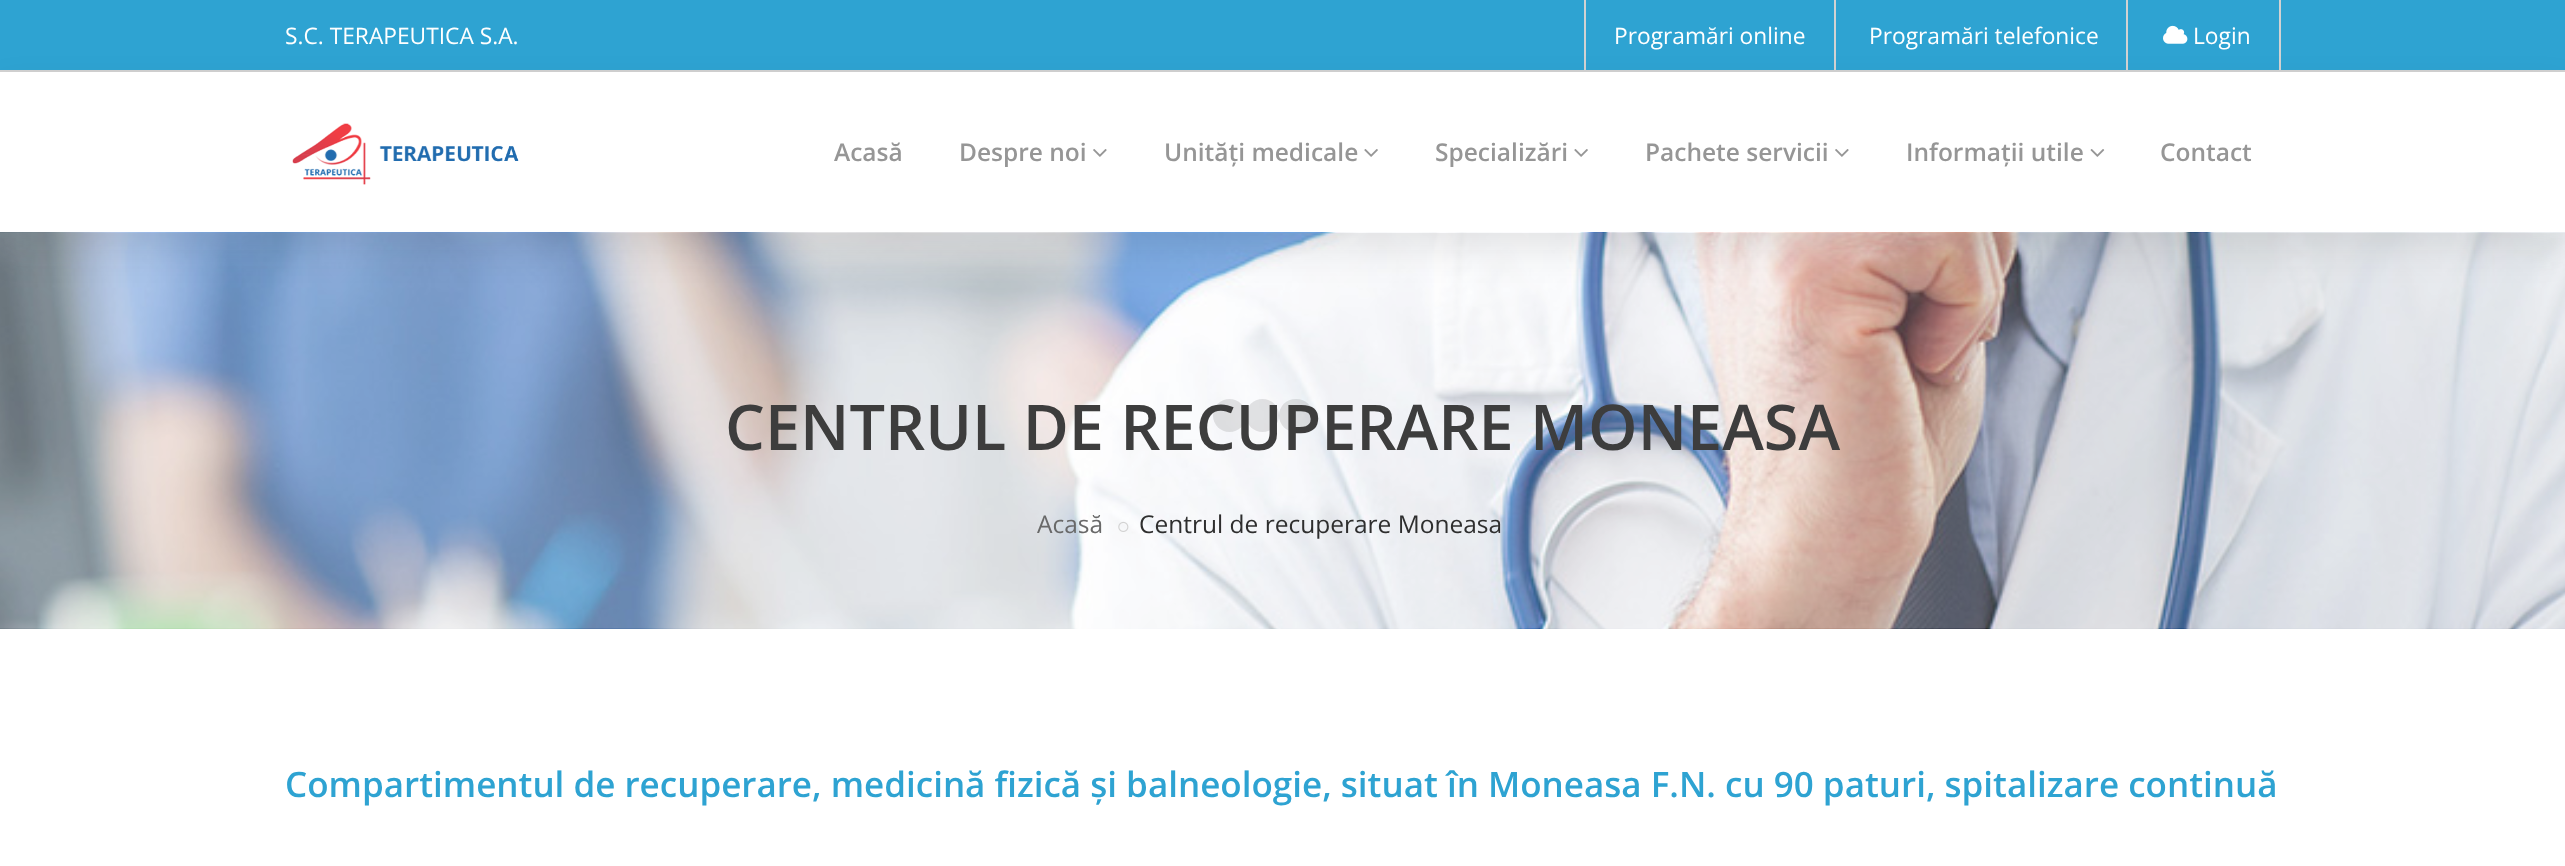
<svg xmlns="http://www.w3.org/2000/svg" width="2565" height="866">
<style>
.a{font:22.75px Open Sans;fill:#fff}
.b{font:600 24.5px Open Sans;fill:#969696}
.c{font:600 63px Open Sans;fill:#3d3d3d}
.d{font:24.5px Open Sans;fill:#696969}
.e{font:24.5px Open Sans;fill:#2e2e2e}
.f{font:600 35px Open Sans;fill:#2ea3d2}
</style>
<defs>
<clipPath id="clip1"><path d="M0 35h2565v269h-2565zm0 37h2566v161h-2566z" clip-rule="evenodd"/></clipPath>
</defs>
<rect width="100%" height="100%" fill="#fff"/>
<path fill="#2ea3d2" d="M0 0h2565v70H0z"/>
<path fill="#d2d2d2" d="M0 70h2565v2H0z"/>
<path fill="#d2d2d2" d="M1834 0h2v70H1834z"/>
<path fill="#d2d2d2" d="M1584 0h2v70H1584z"/>
<path fill="#d2d2d2" d="M2126 0h2v70H2126z"/>
<path fill="#d2d2d2" d="M2279 0h2v70H2279z"/>
<image href="1.png" x="2163" y="25" width="25" height="19"/>
<image href="6.png" x="0" y="232" width="2565" height="397"/>
<g clip-path="url(#clip1)">
<path fill="#1f1f1f1a" filter="blur(17.5px)" d="M0 89h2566v161H0z"/>
</g>
<image href="2.png" x="292" y="123" width="227" height="62"/>
<image href="3.png" x="1093" y="149" width="14" height="8"/>
<image href="4.png" x="1364" y="149" width="14" height="8"/>
<image href="4.png" x="1574" y="149" width="14" height="8"/>
<image href="3.png" x="1835" y="149" width="14" height="8"/>
<image href="5.png" x="2090" y="149" width="15" height="8"/>
<circle fill="#2a2b261f" cx="1229.5" cy="415.5" r="16.5"/>
<circle fill="#2a2b261f" cx="1262.5" cy="415.5" r="16.5"/>
<rect fill="#2a2b261f" x="1279" y="399" width="34" height="33" rx="16.5"/>
<image href="7.png" x="1118" y="521" width="11" height="11"/>
<text class="a" x="285" y="44">S.C. TERAPEUTICA S.A.</text>
<text class="a" x="1614" y="44">Programări online</text>
<text class="a" x="1869" y="44">Programări telefonice</text>
<text class="a" x="2193" y="44">Login</text>
<text class="b" x="834" y="161">Acasă</text>
<text class="b" x="959" y="161">Despre noi</text>
<text class="b" x="1164" y="161">Unități medicale</text>
<text class="b" x="1435" y="161">Specializări</text>
<text class="b" x="1645" y="161">Pachete servicii</text>
<text class="b" x="1906" y="161">Informații utile</text>
<text class="b" x="2160" y="161">Contact</text>
<text class="c" x="725" y="450">CENTRUL DE RECUPERARE MONEASA</text>
<text class="d" x="1037" y="533">Acasă</text>
<text class="e" x="1139" y="533">Centrul de recuperare Moneasa</text>
<text class="f" x="285" y="797">Compartimentul de recuperare, medicină fizică și balneologie, situat în Moneasa F.N. cu 90 paturi, spitalizare continuă</text>
</svg>
